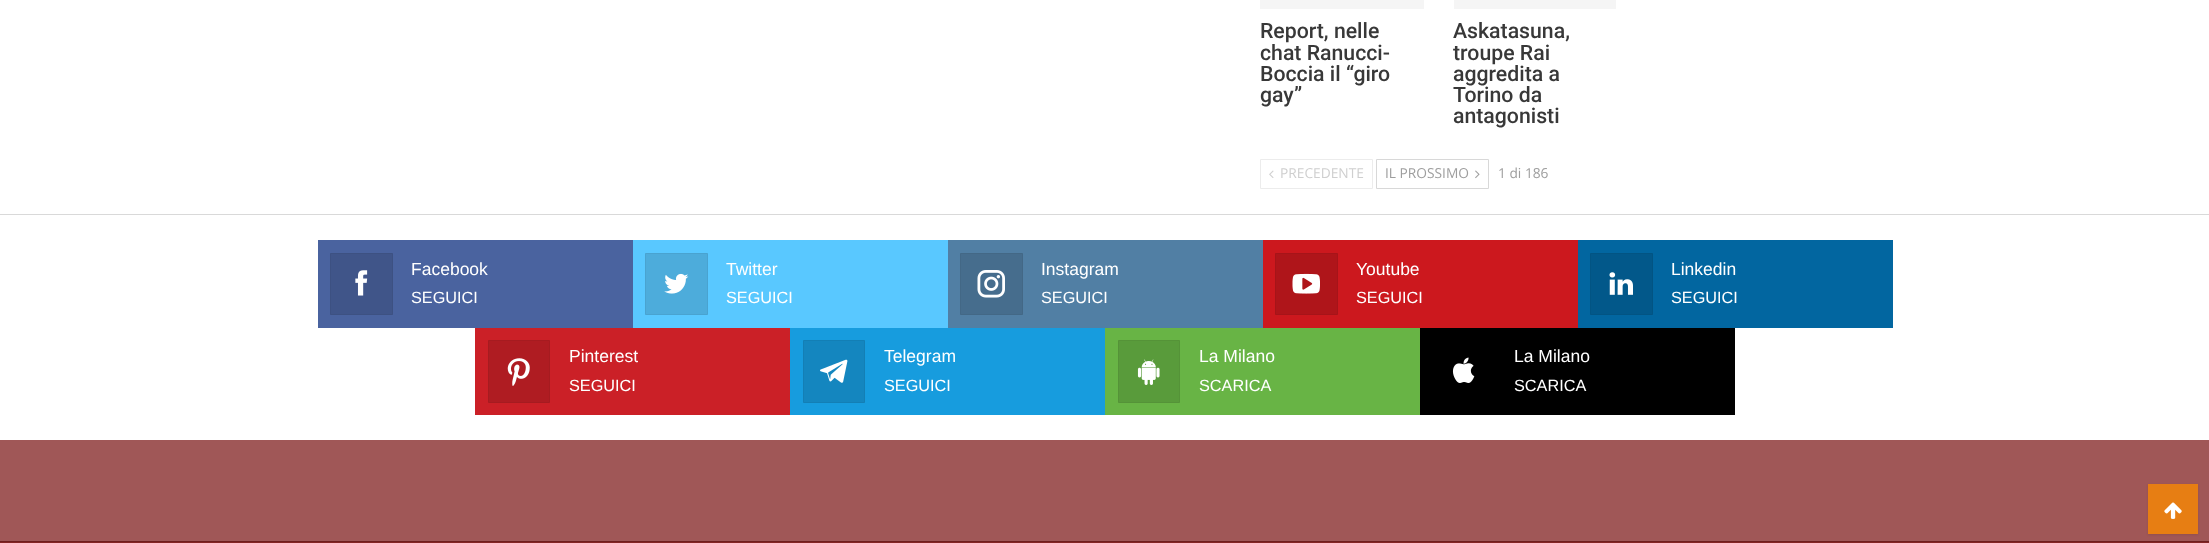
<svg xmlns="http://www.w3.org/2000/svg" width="2209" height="543">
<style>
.a{font:500 21.25px Roboto;fill:#383838}
.b{font:13.75px Open Sans;fill:#cfcfcf}
.c{font:13.75px Open Sans;fill:#9e9e9e}
.d{font:17.5px Liberation Sans;fill:#fff}
.e{font:16.25px Liberation Sans;fill:#fff}
</style>
<rect width="100%" height="100%" fill="#fff"/>
<path fill="#f5f5f5" d="M1260 0h164v9H1260z"/>
<path fill="#f5f5f5" d="M1454 0h162v9H1454z"/>
<path fill="none" stroke="#ececec" d="M1260.5 159.5h112v29H1260.5z"/>
<image href="1.png" x="1269" y="170" width="5" height="8"/>
<path fill="none" stroke="#d8d8d8" d="M1376.5 159.5h112v29H1376.5z"/>
<image href="2.png" x="1475" y="170" width="5" height="9"/>
<path fill="#a05757" d="M0 440h2209v101H0z"/>
<path fill="#d9d9d9" d="M0 214h2209v1H0z"/>
<path fill="#4a639f" d="M318 240h315v88H318z"/>
<path fill="#405589" stroke="#3d5182" d="M330.5 253.5h62v61H330.5z"/>
<image href="3.png" x="355" y="270" width="13" height="26"/>
<path fill="#59c8ff" d="M633 240h315v88H633z"/>
<path fill="#4dacdb" stroke="#49a3d0" d="M645.5 253.5h62v61H645.5z"/>
<image href="4.png" x="664" y="273" width="25" height="21"/>
<path fill="#517fa4" d="M948 240h315v88H948z"/>
<path fill="#466d8d" stroke="#436886" d="M960.5 253.5h62v61H960.5z"/>
<image href="5.png" x="977" y="270" width="28" height="28"/>
<path fill="#cc181e" d="M1263 240h315v88H1263z"/>
<path fill="#af151a" stroke="#a61419" d="M1275.5 253.5h62v61H1275.5z"/>
<image href="6.png" x="1292" y="273" width="28" height="21"/>
<path fill="#0266a0" d="M1578 240h315v88H1578z"/>
<path fill="#02588a" stroke="#025483" d="M1590.5 253.5h62v61H1590.5z"/>
<image href="7.png" x="1609" y="272" width="24" height="23"/>
<path fill="#cb2027" d="M475 328h315v87H475z"/>
<path fill="#af1c22" stroke="#a61b20" d="M488.5 340.5h61v62H488.5z"/>
<image href="8.png" x="507" y="358" width="23" height="28"/>
<path fill="#179cde" d="M790 328h315v87H790z"/>
<path fill="#1486bf" stroke="#137fb5" d="M803.5 340.5h61v62H803.5z"/>
<image href="9.png" x="820" y="359" width="28" height="24"/>
<path fill="#68b445" d="M1105 328h315v87H1105z"/>
<path fill="#599b3b" stroke="#559338" d="M1118.5 340.5h61v62H1118.5z"/>
<image href="10.png" x="1137" y="359" width="23" height="26"/>
<path fill="#000" d="M1420 328h315v87H1420z"/>
<image href="11.png" x="1452" y="357" width="23" height="26"/>
<path fill="#832525" d="M0 542h2209v1H0z"/>
<path fill="#6f1f1f" d="M0 541h2209v1H0z"/>
<path fill="#00000017" filter="blur(1px)" d="M2148 485h50v50H2148z"/>
<path fill="#e77e13" d="M2148 484h50v50H2148z"/>
<image href="12.png" x="2164" y="502" width="18" height="17"/>
<text class="a" x="1260" y="38">Report, nelle</text>
<text class="a" x="1260" y="60">chat Ranucci-</text>
<text class="a" x="1260" y="81">Boccia il “giro</text>
<text class="a" x="1260" y="102">gay”</text>
<text class="a" x="1453" y="38">Askatasuna,</text>
<text class="a" x="1453" y="60">troupe Rai</text>
<text class="a" x="1453" y="81">aggredita a</text>
<text class="a" x="1453" y="102">Torino da</text>
<text class="a" x="1453" y="123">antagonisti</text>
<text class="b" x="1280" y="178">PRECEDENTE</text>
<text class="c" x="1385" y="178">IL PROSSIMO</text>
<text class="c" x="1498" y="178">1 di 186</text>
<text class="d" x="411" y="275">Facebook</text>
<text class="e" x="411" y="303">SEGUICI</text>
<text class="d" x="726" y="275">Twitter</text>
<text class="e" x="726" y="303">SEGUICI</text>
<text class="d" x="1041" y="275">Instagram</text>
<text class="e" x="1041" y="303">SEGUICI</text>
<text class="d" x="1356" y="275">Youtube</text>
<text class="e" x="1356" y="303">SEGUICI</text>
<text class="d" x="1671" y="275">Linkedin</text>
<text class="e" x="1671" y="303">SEGUICI</text>
<text class="d" x="569" y="362">Pinterest</text>
<text class="e" x="569" y="391">SEGUICI</text>
<text class="d" x="884" y="362">Telegram</text>
<text class="e" x="884" y="391">SEGUICI</text>
<text class="d" x="1199" y="362">La Milano</text>
<text class="e" x="1199" y="391">SCARICA</text>
<text class="d" x="1514" y="362">La Milano</text>
<text class="e" x="1514" y="391">SCARICA</text>
</svg>
